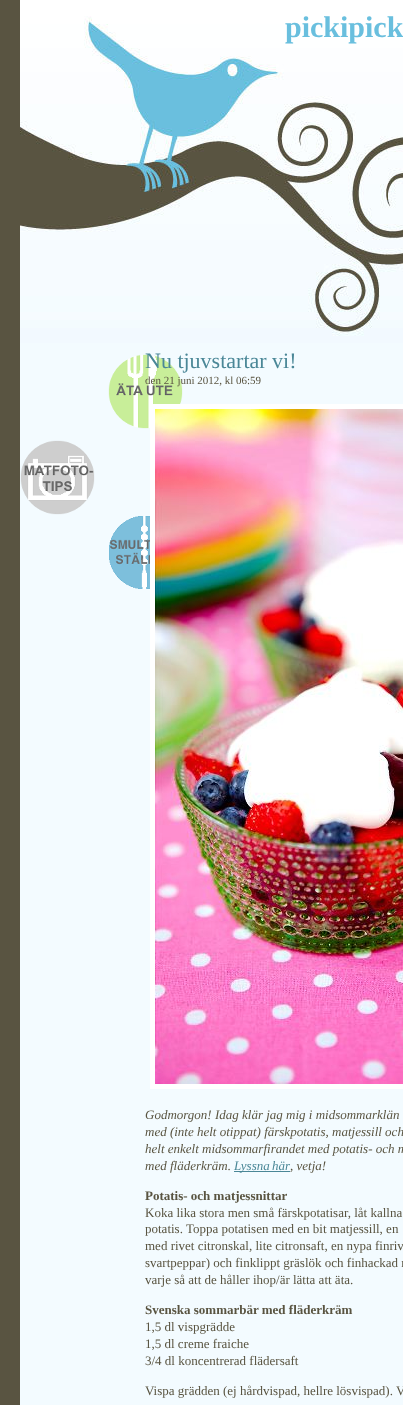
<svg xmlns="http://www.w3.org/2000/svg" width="403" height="1405">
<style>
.a{font:bold 30px Liberation Serif;fill:#69bfde}
.b{font:22px Liberation Serif;fill:#4a8797}
.c{font:11px Liberation Serif;fill:#595441}
.d{font:italic 13px Liberation Serif;fill:#595441}
.e{font:italic 13px Liberation Serif;fill:#4a8797}
.f{font:bold 13px Liberation Serif;fill:#595441}
.g{font:13px Liberation Serif;fill:#595441}
</style>
<rect width="100%" height="100%" fill="#f3fbff"/>
<path fill="#595441" d="M0 0h20v1405H0z"/>
<path fill="#fff" d="M20 0h383v16H20z"/>
<image href="1.png" x="20" y="336" width="383" height="7"/>
<image href="2.png" x="20" y="16" width="383" height="320"/>
<image href="3.png" x="108" y="354" width="75" height="75"/>
<image href="4.png" x="20" y="440" width="75" height="75"/>
<image href="5.png" x="109" y="516" width="41" height="73"/>
<path fill="#fff" d="M150 404h253v685H150z"/>
<image href="6.png" x="155" y="409" width="248" height="675"/>
<path fill="#4a8797" d="M234 1171h56v1H234z"/>
<text class="a" x="285" y="37">pickipick</text>
<text class="b" x="145" y="368">Nu tjuvstartar vi!</text>
<text class="c" x="145" y="384">den 21 juni 2012, kl 06:59</text>
<text class="d" x="145" y="1119">Godmorgon! Idag klär jag mig i midsommarklän</text>
<text class="d" x="145" y="1136">med (inte helt otippat) färskpotatis, matjessill och</text>
<text class="d" x="145" y="1153">helt enkelt midsommarfirandet med potatis- och m</text>
<text class="d" x="145" y="1170">med fläderkräm.</text>
<text class="e" x="234" y="1170" word-spacing="-1">Lyssna här</text>
<text class="d" x="290" y="1170">, vetja!</text>
<text class="f" x="145" y="1200">Potatis- och matjessnittar</text>
<text class="g" x="145" y="1217">Koka lika stora men små färskpotatisar, låt kallna</text>
<text class="g" x="145" y="1233">potatis. Toppa potatisen med en bit matjessill, en</text>
<text class="g" x="145" y="1250">med rivet citronskal, lite citronsaft, en nypa finriv</text>
<text class="g" x="145" y="1267">svartpeppar) och finklippt gräslök och finhackad r</text>
<text class="g" x="145" y="1284">varje så att de håller ihop/är lätta att äta.</text>
<text class="f" x="145" y="1314">Svenska sommarbär med fläderkräm</text>
<text class="g" x="145" y="1331">1,5 dl vispgrädde</text>
<text class="g" x="145" y="1348">1,5 dl creme fraiche</text>
<text class="g" x="145" y="1365">3/4 dl koncentrerad flädersaft</text>
<text class="g" x="145" y="1395">Vispa grädden (ej hårdvispad, hellre lösvispad). V</text>
</svg>
